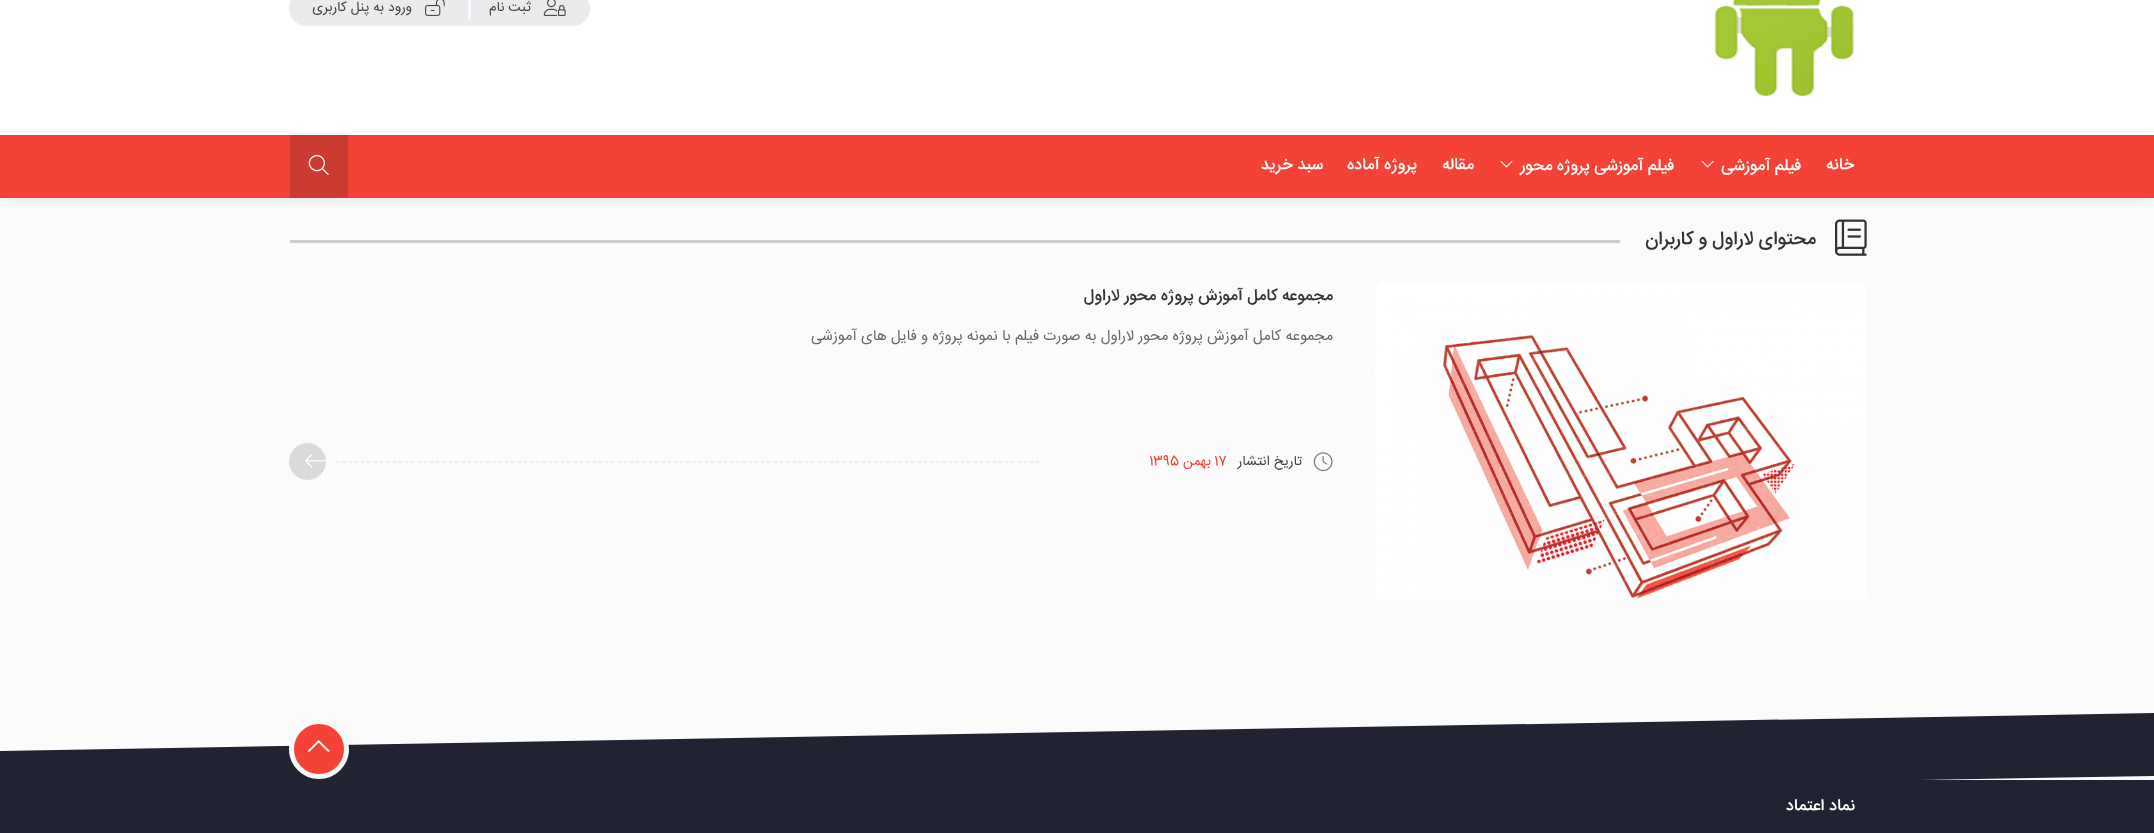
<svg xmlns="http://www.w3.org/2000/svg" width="2154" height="833">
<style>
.a{font:13.75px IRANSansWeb;direction:rtl;fill:#444}
.b{font:500 16.25px IRANSansWeb;direction:rtl;fill:#fff}
.c{font:500 18.75px IRANSansWeb;direction:rtl;fill:#333}
.d{font:500 16.25px IRANSansWeb;direction:rtl;fill:#333}
.e{font:15px IRANSansWeb;direction:rtl;fill:#696969}
.f{font:13.75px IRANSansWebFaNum;fill:#f44336}
.g{font:13.75px IRANSansWebFaNum;direction:rtl;fill:#f44336}
</style>
<rect width="100%" height="100%" fill="#fbfbfc"/>
<image href="7.png" x="1835" y="219" width="32" height="37"/>
<path fill="#0000001a" filter="blur(7px)" d="M4 -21h2147v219H4z"/>
<path fill="#fff" d="M0 0h2154v135H0z"/>
<image href="1.png" x="1714" y="0" width="140" height="97"/>
<rect fill="#ebebed" x="289" y="-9" width="301" height="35" rx="17.5"/>
<image href="2.png" x="543" y="0" width="23" height="16"/>
<path fill="#f7f8fb" d="M468 0h3v20H468z"/>
<image href="3.png" x="425" y="0" width="20" height="16"/>
<path fill="#f44336" d="M0 135h2154v63H0z"/>
<image href="4.png" x="1701" y="160" width="13" height="8"/>
<image href="5.png" x="1500" y="160" width="13" height="8"/>
<path fill="#cc3b31" d="M290 135h58v63H290z"/>
<image href="6.png" x="308" y="155" width="21" height="20"/>
<path fill="#ccc" d="M290 240h1330v3H290z"/>
<image href="8.png" x="1375" y="282" width="491" height="317"/>
<image href="9.png" x="1313" y="452" width="20" height="20"/>
<path fill="none" stroke="#ddd" stroke-width="1.2" stroke-dasharray="3.75 2.5" d="M336 462h704"/>
<circle fill="#dadada" cx="307.5" cy="461.5" r="18.5"/>
<image href="10.png" x="305" y="454" width="21" height="14"/>
<path fill="#222332" d="M0 780h2154v53H0z"/>
<path fill="#222332" d="M0 751l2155-38v63l-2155 37z"/>
<circle fill="#f44336" stroke="#fbfbfc" stroke-width="5" cx="319" cy="749" r="27.5"/>
<image href="11.png" x="308" y="740" width="22" height="12"/>
<text class="a" x="531" y="11">ثبت نام</text>
<text class="a" x="412" y="11">ورود به پنل کاربری</text>
<text class="b" x="1854" y="169">خانه</text>
<text class="b" x="1801" y="170">فیلم آموزشی</text>
<text class="b" x="1674" y="170">فیلم آموزشی پروژه محور</text>
<text class="b" x="1474" y="169">مقاله</text>
<text class="b" x="1417" y="169">پروژه آماده</text>
<text class="b" x="1323" y="169">سبد خرید</text>
<text class="c" x="1816" y="244">محتوای لاراول و کاربران</text>
<text class="d" x="1333" y="300">مجموعه کامل آموزش پروژه محور لاراول</text>
<text class="e" x="1333" y="340">مجموعه کامل آموزش پروژه محور لاراول به صورت فیلم با نمونه پروژه و فایل های آموزشی</text>
<text class="a" x="1302" y="465">تاریخ انتشار</text>
<text class="f" x="1214" y="465">17</text>
<text class="g" x="1211" y="465">بهمن</text>
<text class="f" x="1149" y="465">1395</text>
<text class="b" x="1855" y="810">نماد اعتماد</text>
</svg>
